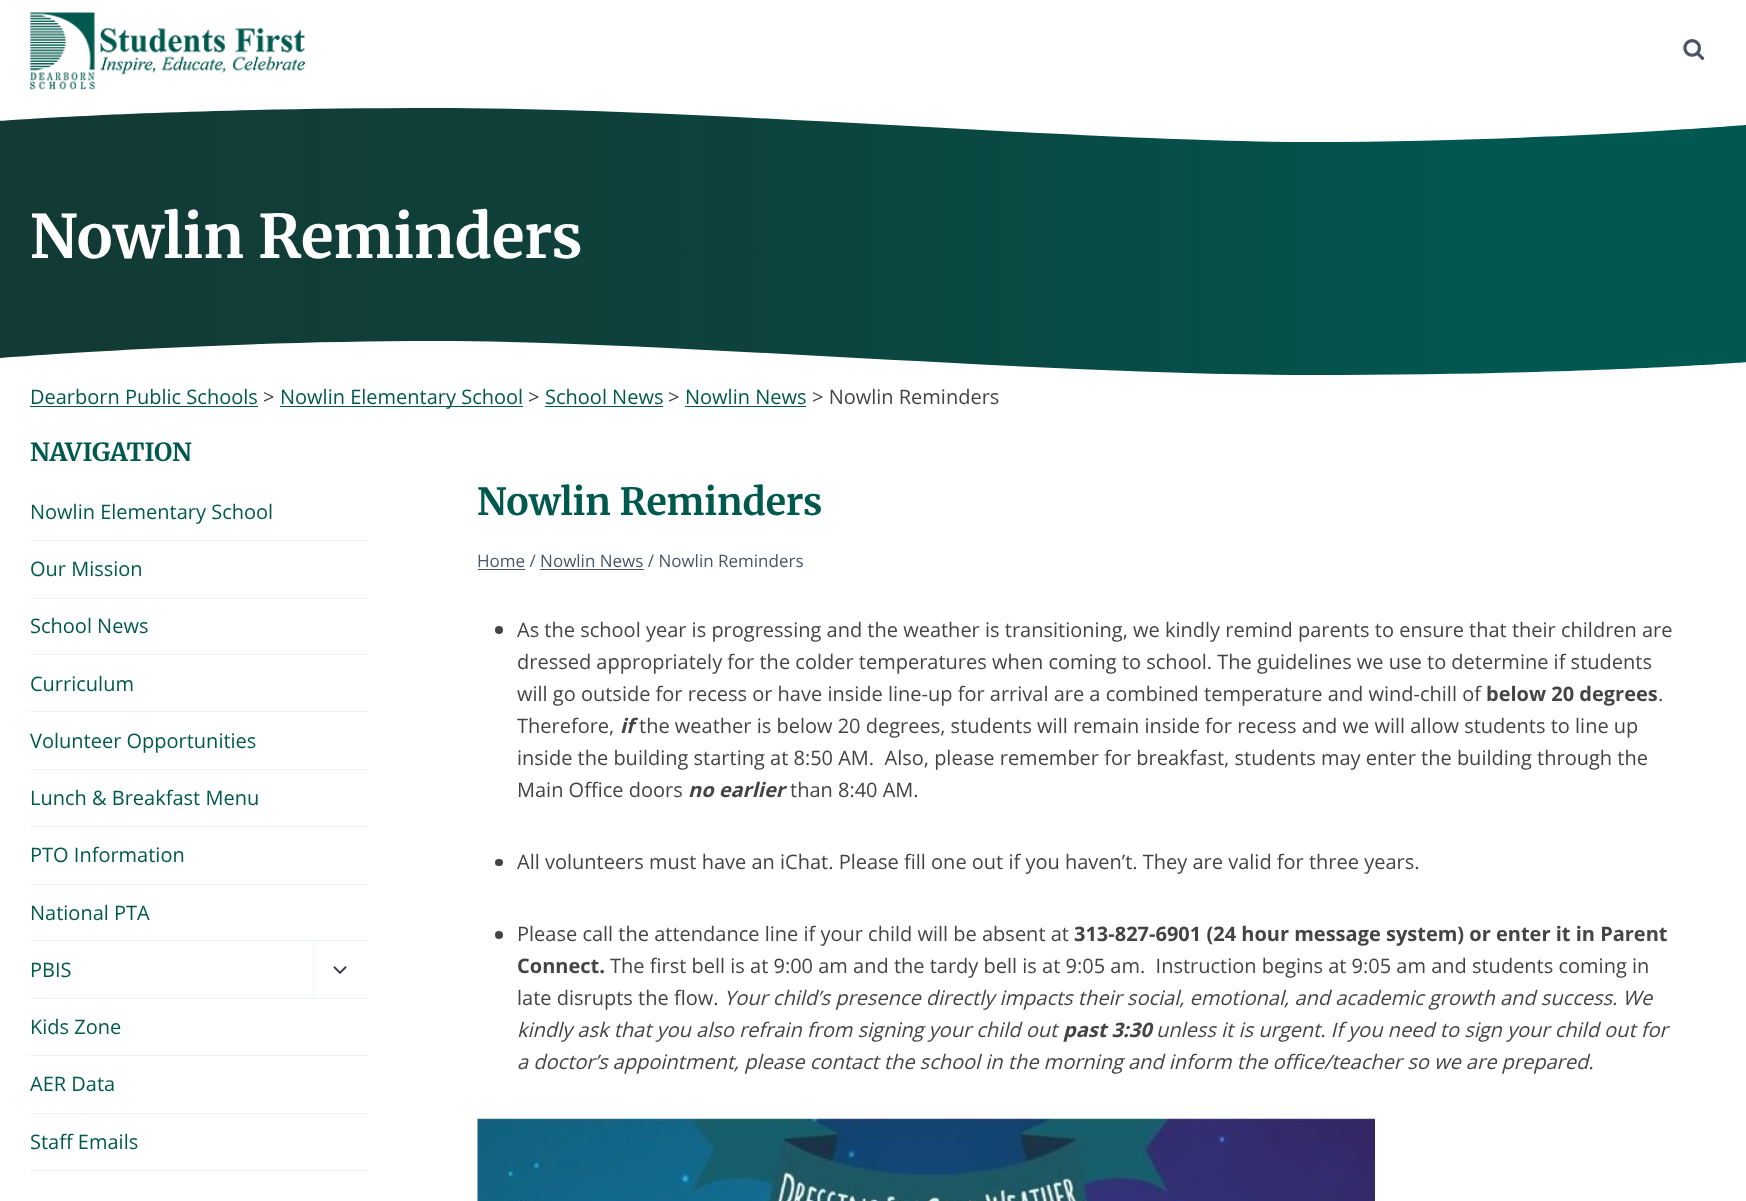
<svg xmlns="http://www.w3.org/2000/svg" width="1746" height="1201">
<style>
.a{font:300 60px Merriweather;fill:#fff}
.b{font:20px Open Sans;fill:#00594f}
.c{font:20px Open Sans;fill:#444}
.d{font:300 25px Merriweather;fill:#00594f}
.e{font:300 37.5px Merriweather;fill:#00594f}
.f{font:17px Open Sans;fill:#4a5568}
.g{font:bold 20px Open Sans;fill:#444}
.h{font:italic bold 20px Open Sans;fill:#444}
.i{font:italic 20px Open Sans;fill:#444}
</style>
<defs>
<linearGradient id="g1" gradientUnits="userSpaceOnUse" x1="0" y1="242" x2="1746" y2="242"><stop offset="0" stop-color="#133a35"/><stop offset="0.18" stop-color="#113d38"/><stop offset="0.45" stop-color="#0d433d"/><stop offset="0.87" stop-color="#005850"/></linearGradient>
</defs>
<rect width="100%" height="100%" fill="#fff"/>
<image href="1.png" x="30" y="12" width="275" height="78"/>
<image href="2.png" x="1683" y="39" width="22" height="21"/>
<path fill="url(#g1)" d="M0 108h1746v267H0z"/>
<path fill="#fff" d="M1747 125c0 0-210 17-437 17c-227 0-604-34-875-34c-271 0-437 13-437 13v-22h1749z"/>
<path fill="#fff" d="M-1 358c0 0 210-17 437-17c228 0 604 34 875 34c271 0 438-13 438-13v22h-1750z"/>
<path fill="#00594f" d="M30 406h228v1H30z"/>
<path fill="#00594f" d="M280 406h243v1H280z"/>
<path fill="#00594f" d="M545 406h118v1H545z"/>
<path fill="#00594f" d="M685 406h121v1H685z"/>
<path fill="#edf2f7" d="M30 540h338v1H30z"/>
<path fill="#edf2f7" d="M30 598h338v1H30z"/>
<path fill="#edf2f7" d="M30 654h338v1H30z"/>
<path fill="#edf2f7" d="M30 711h338v1H30z"/>
<path fill="#edf2f7" d="M30 769h338v1H30z"/>
<path fill="#edf2f7" d="M30 826h338v1H30z"/>
<path fill="#edf2f7" d="M30 884h338v1H30z"/>
<path fill="#edf2f7" d="M30 940h338v1H30z"/>
<path fill="#edf2f7" d="M30 998h338v1H30z"/>
<path fill="#edf2f7" d="M313 941h1v58H313z"/>
<image href="3.png" x="333" y="966" width="14" height="8"/>
<path fill="#edf2f7" d="M30 1055h338v1H30z"/>
<path fill="#edf2f7" d="M30 1113h338v1H30z"/>
<path fill="#edf2f7" d="M30 1170h338v1H30z"/>
<path fill="#4a5568" d="M478 569h47v1H478z"/>
<path fill="#4a5568" d="M540 569h104v1H540z"/>
<circle fill="#444" cx="499" cy="630" r="4"/>
<rect fill="#444" x="495" y="859" width="8" height="7" rx="3.5"/>
<circle fill="#444" cx="499" cy="935" r="4"/>
<image href="4.png" x="477" y="1118" width="898" height="83"/>
<text class="a" x="30" y="258">Nowlin Reminders</text>
<text class="b" x="30" y="404">Dearborn Public Schools</text>
<text class="c" x="263" y="404">&gt;</text>
<text class="b" x="280" y="404">Nowlin Elementary School</text>
<text class="c" x="528" y="404">&gt;</text>
<text class="b" x="545" y="404">School News</text>
<text class="c" x="668" y="404">&gt;</text>
<text class="b" x="685" y="404">Nowlin News</text>
<text class="c" x="812" y="404">&gt; Nowlin Reminders</text>
<text class="d" x="30" y="461">NAVIGATION</text>
<text class="b" x="30" y="519">Nowlin Elementary School</text>
<text class="b" x="30" y="576">Our Mission</text>
<text class="b" x="30" y="633">School News</text>
<text class="b" x="30" y="691">Curriculum</text>
<text class="b" x="30" y="748">Volunteer Opportunities</text>
<text class="b" x="30" y="805">Lunch &amp; Breakfast Menu</text>
<text class="b" x="30" y="862">PTO Information</text>
<text class="b" x="30" y="920">National PTA</text>
<text class="b" x="30" y="977">PBIS</text>
<text class="b" x="30" y="1034">Kids Zone</text>
<text class="b" x="30" y="1091">AER Data</text>
<text class="b" x="30" y="1149">Staff Emails</text>
<text class="e" x="477" y="515">Nowlin Reminders</text>
<text class="f" x="477" y="567">Home / Nowlin News / Nowlin Reminders</text>
<text class="c" x="517" y="637">As the school year is progressing and the weather is transitioning, we kindly remind parents to ensure that their children are</text>
<text class="c" x="517" y="669">dressed appropriately for the colder temperatures when coming to school. The guidelines we use to determine if students</text>
<text class="c" x="517" y="701">will go outside for recess or have inside line-up for arrival are a combined temperature and wind-chill of</text>
<text class="g" x="1486" y="701">below 20 degrees</text>
<text class="c" x="1658" y="701">.</text>
<text class="c" x="517" y="733">Therefore,</text>
<text class="h" x="620" y="733">if</text>
<text class="c" x="639" y="733">the weather is below 20 degrees, students will remain inside for recess and we will allow students to line up</text>
<text class="c" xml:space="preserve" x="517" y="765">inside the building starting at 8:50 AM.  Also, please remember for breakfast, students may enter the building through the</text>
<text class="c" x="517" y="797">Main Office doors</text>
<text class="h" x="688" y="797">no earlier</text>
<text class="c" x="790" y="797">than 8:40 AM.</text>
<text class="c" x="517" y="869">All volunteers must have an iChat. Please fill one out if you haven’t. They are valid for three years.</text>
<text class="c" x="517" y="941">Please call the attendance line if your child will be absent at</text>
<text class="g" x="1074" y="941">313-827-6901 (24 hour message system) or enter it in Parent</text>
<text class="g" x="517" y="973">Connect.</text>
<text class="c" xml:space="preserve" x="610" y="973">The first bell is at 9:00 am and the tardy bell is at 9:05 am.  Instruction begins at 9:05 am and students coming in</text>
<text class="c" x="517" y="1005">late disrupts the flow.</text>
<text class="i" x="724" y="1005">Your child’s presence directly impacts their social, emotional, and academic growth and success. We</text>
<text class="i" x="517" y="1037">kindly ask that you also refrain from signing your child out</text>
<text class="h" x="1063" y="1037">past 3:30</text>
<text class="i" x="1156" y="1037">unless it is urgent. If you need to sign your child out for</text>
<text class="i" x="517" y="1069">a doctor’s appointment, please contact the school in the morning and inform the office/teacher so we are prepared.</text>
</svg>
